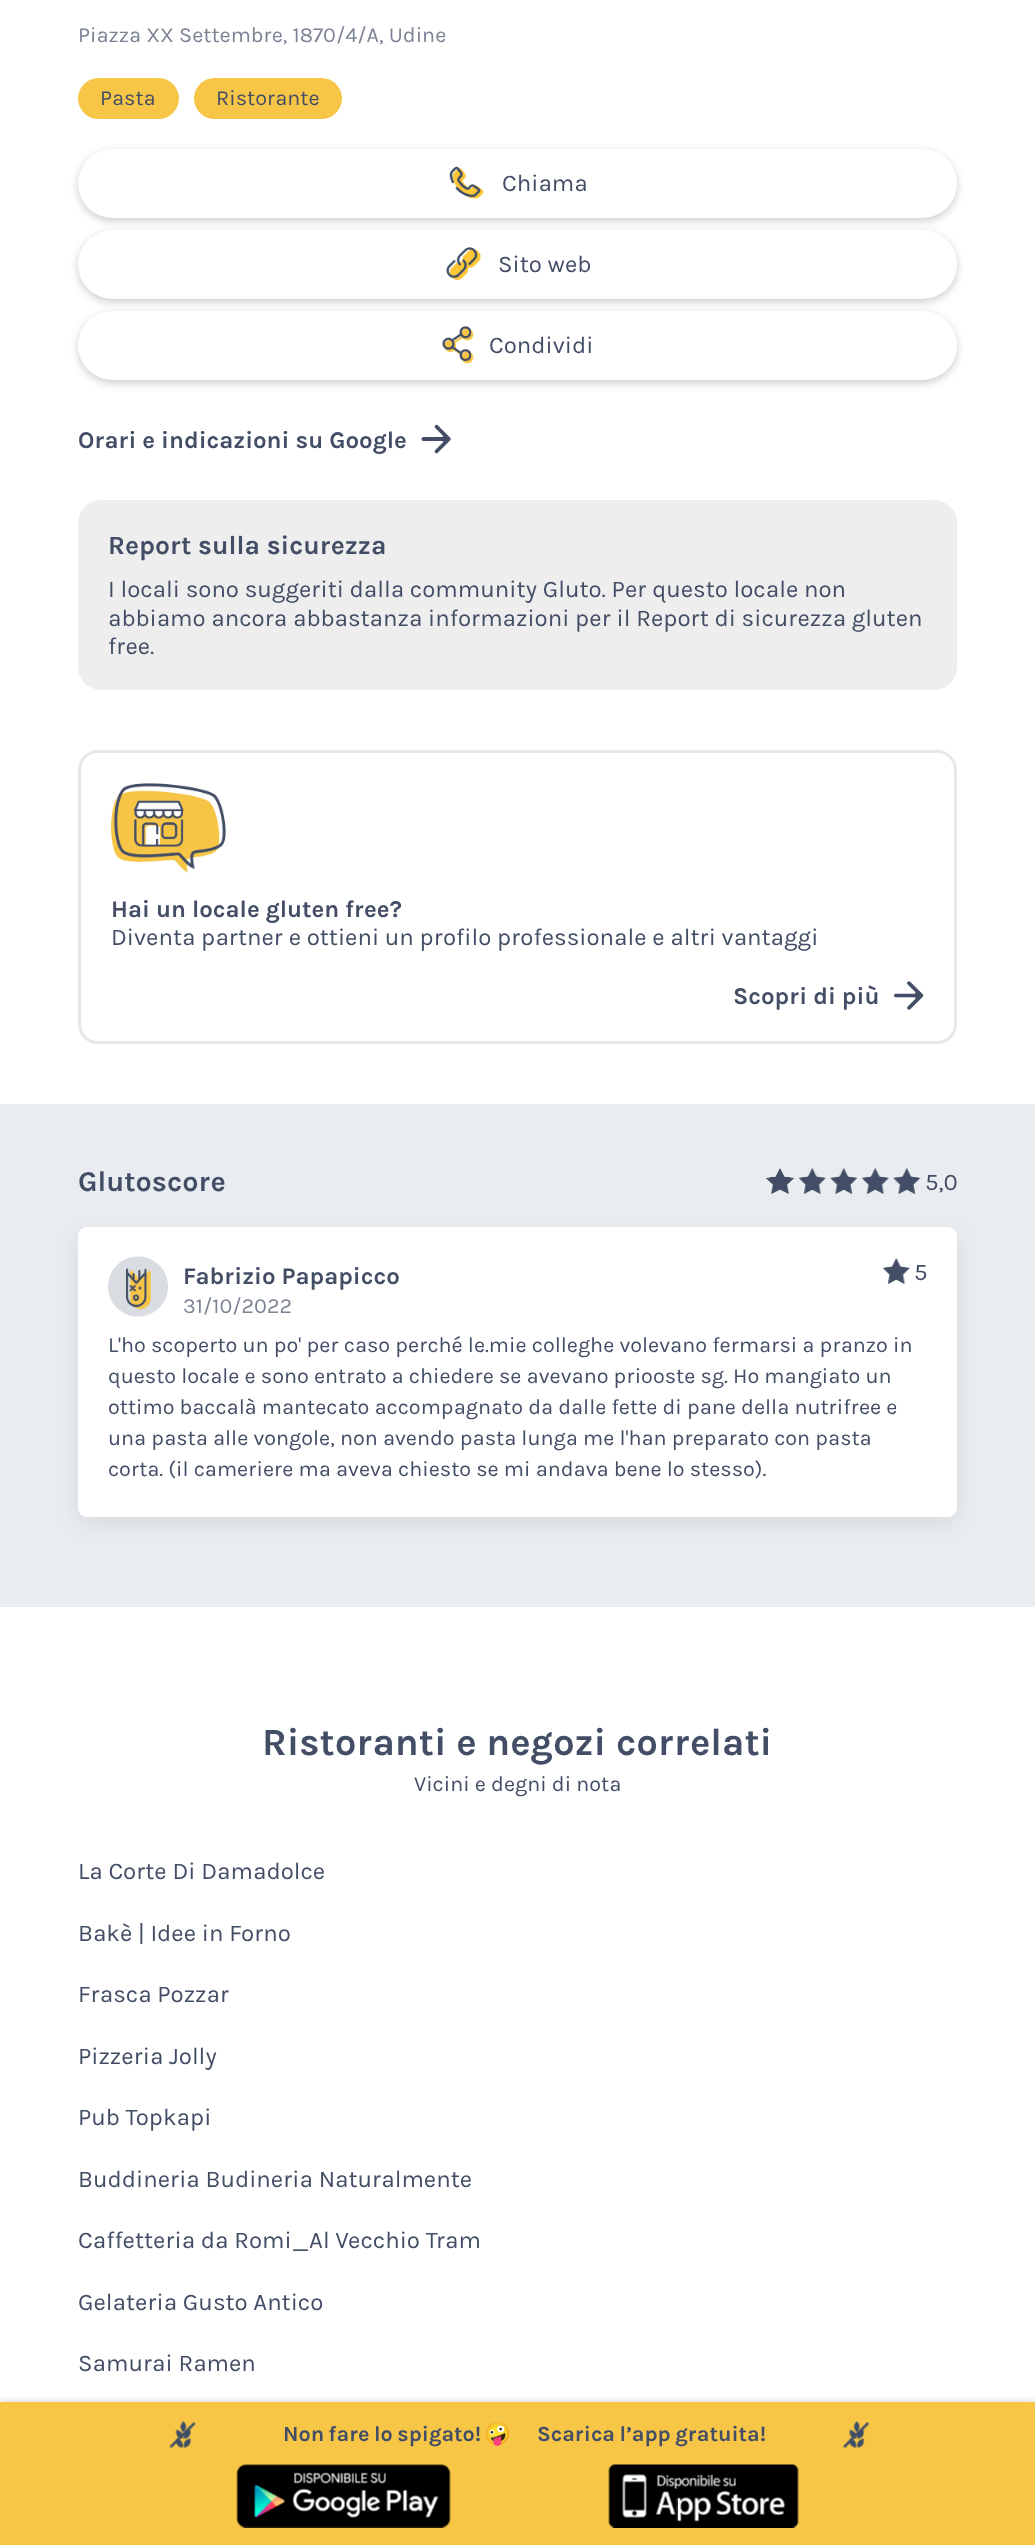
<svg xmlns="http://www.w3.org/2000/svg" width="1035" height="2545">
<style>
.a{font:21.6px Karla;fill:#7b8394}
.b{font:21.6px Karla;fill:#434e66}
.c{font:24px Karla;fill:#434e66}
.d{font:bold 24px Karla;fill:#434e66}
.e{font:bold 26.4px Karla;fill:#434e66}
.f{font:bold 28.75px Karla;fill:#434e66}
.g{font:bold 38.4px Karla;fill:#434e66}
.h{font:bold 21.6px Karla;fill:#434e66}
.i{font:21.6px Noto Color Emoji;fill:#434e66}
</style>
<rect width="100%" height="100%" fill="#fff"/>
<rect fill="#f7c647" x="78" y="78" width="101" height="41" rx="20.5"/>
<rect fill="#f7c647" x="194" y="78" width="148" height="41" rx="20.5"/>
<rect fill="#00000033" filter="blur(4px)" x="78" y="152" width="879" height="69" rx="34.5"/>
<rect fill="#fff" x="78" y="149" width="879" height="69" rx="34.5"/>
<image href="1.png" x="449" y="166" width="35" height="33"/>
<rect fill="#00000033" filter="blur(4px)" x="78" y="233" width="879" height="69" rx="34.5"/>
<rect fill="#fff" x="78" y="230" width="879" height="69" rx="34.5"/>
<image href="2.png" x="446" y="247" width="35" height="33"/>
<rect fill="#00000033" filter="blur(4px)" x="78" y="314" width="879" height="69" rx="34.5"/>
<rect fill="#fff" x="78" y="311" width="879" height="69" rx="34.5"/>
<image href="3.png" x="442" y="326" width="32" height="38"/>
<image href="4.png" x="421" y="424" width="30" height="30"/>
<rect fill="#eee" x="78" y="500" width="879" height="190" rx="23"/>
<rect fill="none" stroke="#e7e7e7" stroke-width="3" x="79.5" y="751.5" width="876" height="291" rx="18.5"/>
<image href="5.png" x="111" y="783" width="115" height="90"/>
<image href="6.png" x="894" y="981" width="30" height="29"/>
<path fill="#e9edf1" d="M0 1104h1035v503H0z"/>
<image href="7.png" x="766" y="1168" width="28" height="26"/>
<image href="8.png" x="798" y="1168" width="28" height="26"/>
<image href="9.png" x="830" y="1168" width="28" height="26"/>
<image href="8.png" x="861" y="1168" width="28" height="26"/>
<image href="9.png" x="893" y="1168" width="28" height="26"/>
<rect fill="#00000014" filter="blur(11px)" x="78" y="1235" width="879" height="289" rx="9"/>
<rect fill="#fff" x="78" y="1227" width="879" height="290" rx="9"/>
<image href="10.png" x="108" y="1256" width="60" height="61"/>
<image href="11.png" x="882" y="1258" width="28" height="26"/>
<path fill="#00000033" filter="blur(3px)" d="M0 2402h1035v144H0z"/>
<path fill="#f7c647" d="M0 2402h1035v143H0z"/>
<image href="12.png" x="169" y="2421" width="27" height="27"/>
<image href="13.png" x="843" y="2421" width="27" height="27"/>
<image href="14.png" x="236" y="2464" width="215" height="64"/>
<image href="15.png" x="608" y="2464" width="191" height="64"/>
<text class="a" x="78" y="42">Piazza XX Settembre, 1870/4/A, Udine</text>
<text class="b" x="100" y="105">Pasta</text>
<text class="b" x="216" y="105">Ristorante</text>
<text class="c" x="502" y="191">Chiama</text>
<text class="c" x="498" y="272">Sito web</text>
<text class="c" x="489" y="353">Condividi</text>
<text class="d" x="78" y="448">Orari e indicazioni su Google</text>
<text class="e" x="108" y="554">Report sulla sicurezza</text>
<text class="c" x="108" y="597">I locali sono suggeriti dalla community Gluto. Per questo locale non</text>
<text class="c" x="108" y="626">abbiamo ancora abbastanza informazioni per il Report di sicurezza gluten</text>
<text class="c" x="108" y="654">free.</text>
<text class="d" x="111" y="917">Hai un locale gluten free?</text>
<text class="c" x="111" y="945">Diventa partner e ottieni un profilo professionale e altri vantaggi</text>
<text class="d" x="733" y="1004">Scopri di più</text>
<text class="f" x="78" y="1191">Glutoscore</text>
<text class="c" x="925" y="1190">5,0</text>
<text class="d" x="183" y="1284">Fabrizio Papapicco</text>
<text class="a" x="183" y="1313">31/10/2022</text>
<text class="c" x="914" y="1280">5</text>
<text class="b" x="108" y="1352">L'ho scoperto un po' per caso perché le.mie colleghe volevano fermarsi a pranzo in</text>
<text class="b" x="108" y="1383">questo locale e sono entrato a chiedere se avevano priooste sg. Ho mangiato un</text>
<text class="b" x="108" y="1414">ottimo baccalà mantecato accompagnato da dalle fette di pane della nutrifree e</text>
<text class="b" x="108" y="1445">una pasta alle vongole, non avendo pasta lunga me l'han preparato con pasta</text>
<text class="b" x="108" y="1476">corta. (il cameriere ma aveva chiesto se mi andava bene lo stesso).</text>
<text class="g" x="262" y="1755">Ristoranti e negozi correlati</text>
<text class="b" x="414" y="1791">Vicini e degni di nota</text>
<text class="c" x="78" y="1879">La Corte Di Damadolce</text>
<text class="c" x="78" y="1941">Bakè | Idee in Forno</text>
<text class="c" x="78" y="2002">Frasca Pozzar</text>
<text class="c" x="78" y="2064">Pizzeria Jolly</text>
<text class="c" x="78" y="2125">Pub Topkapi</text>
<text class="c" x="78" y="2187">Buddineria Budineria Naturalmente</text>
<text class="c" x="78" y="2248">Caffetteria da Romi_Al Vecchio Tram</text>
<text class="c" x="78" y="2310">Gelateria Gusto Antico</text>
<text class="c" x="78" y="2371">Samurai Ramen</text>
<text class="h" x="283" y="2441" word-spacing="-1">Non fare lo spigato!</text>
<text class="i" x="484" y="2441">🤪‍</text>
<text class="h" x="537" y="2441" word-spacing="-1">Scarica l’app gratuita!</text>
</svg>
